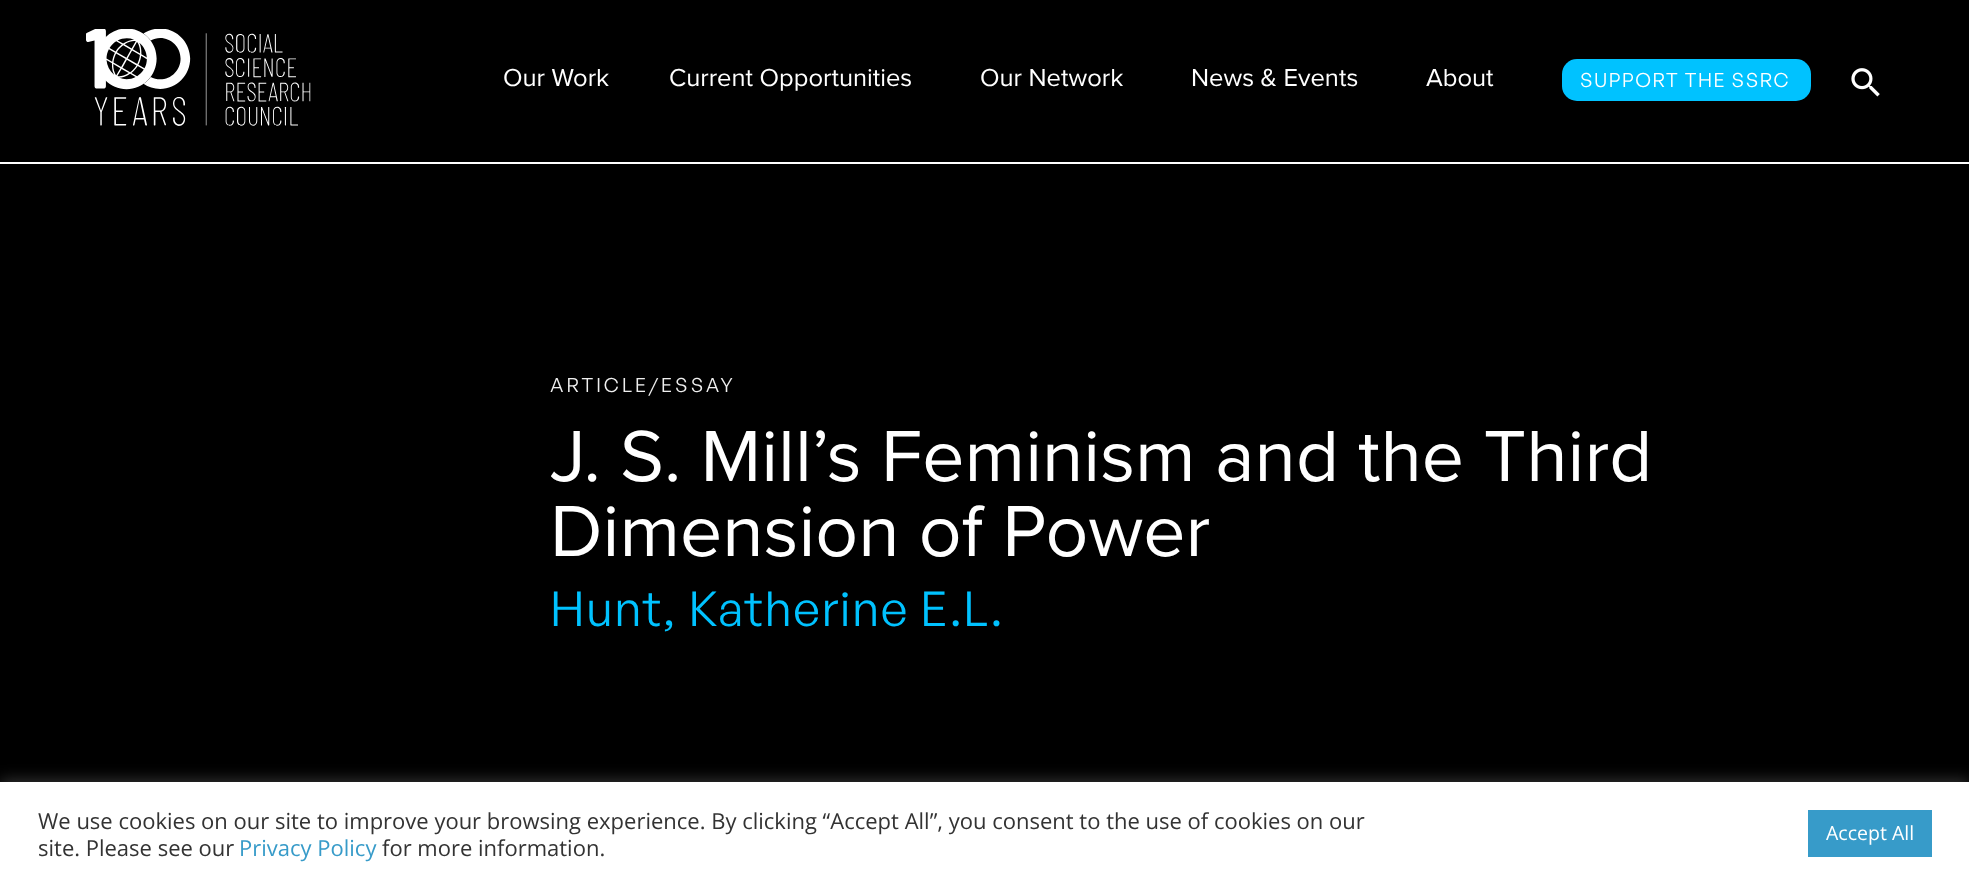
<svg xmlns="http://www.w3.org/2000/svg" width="1969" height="884">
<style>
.a{font:25.5px Proxima Nova;fill:#fff}
.b{font:19.5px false;letter-spacing:1.5px;fill:#fff}
.c{font:19.5px false;letter-spacing:3px;fill:#efefef}
.d{font:75px Proxima Nova;fill:#fff}
.e{font:48px false;letter-spacing:1.5px;fill:#00c2ff}
.f{font:22px Open Sans;fill:#333}
.g{font:22px Open Sans;fill:#379bc9}
.h{font:19.5px Open Sans;fill:#fff}
</style>
<rect width="100%" height="100%" fill="#000"/>
<path fill="#fff" d="M0 162h1969v2H0z"/>
<image href="1.png" x="86" y="29" width="225" height="97"/>
<rect fill="#00c2ff" x="1562" y="59" width="249" height="42" rx="15"/>
<image href="2.png" x="1851" y="68" width="29" height="29"/>
<path fill="#acabab4d" filter="blur(7.5px)" d="M0 780h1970v104H0z"/>
<path fill="#fff" d="M0 782h1969v102H0z"/>
<path fill="#379bc9" d="M1808 810h124v47H1808z"/>
<text class="a" x="503" y="86">Our Work</text>
<text class="a" x="669" y="86">Current Opportunities</text>
<text class="a" x="980" y="86">Our Network</text>
<text class="a" x="1191" y="86">News &amp; Events</text>
<text class="a" x="1426" y="86">About</text>
<text class="b" x="1580" y="87">SUPPORT THE SSRC</text>
<text class="c" x="550" y="392">ARTICLE/ESSAY</text>
<text class="d" x="550" y="481">J. S. Mill’s Feminism and the Third</text>
<text class="d" x="550" y="556">Dimension of Power</text>
<text class="e" x="550" y="626">Hunt, Katherine E.L.</text>
<text class="f" x="38" y="829">We use cookies on our site to improve your browsing experience. By clicking “Accept All”, you consent to the use of cookies on our</text>
<text class="f" x="38" y="856">site. Please see our</text>
<text class="g" x="239" y="856">Privacy Policy</text>
<text class="f" x="382" y="856">for more information.</text>
<text class="h" x="1826" y="840">Accept All</text>
</svg>
